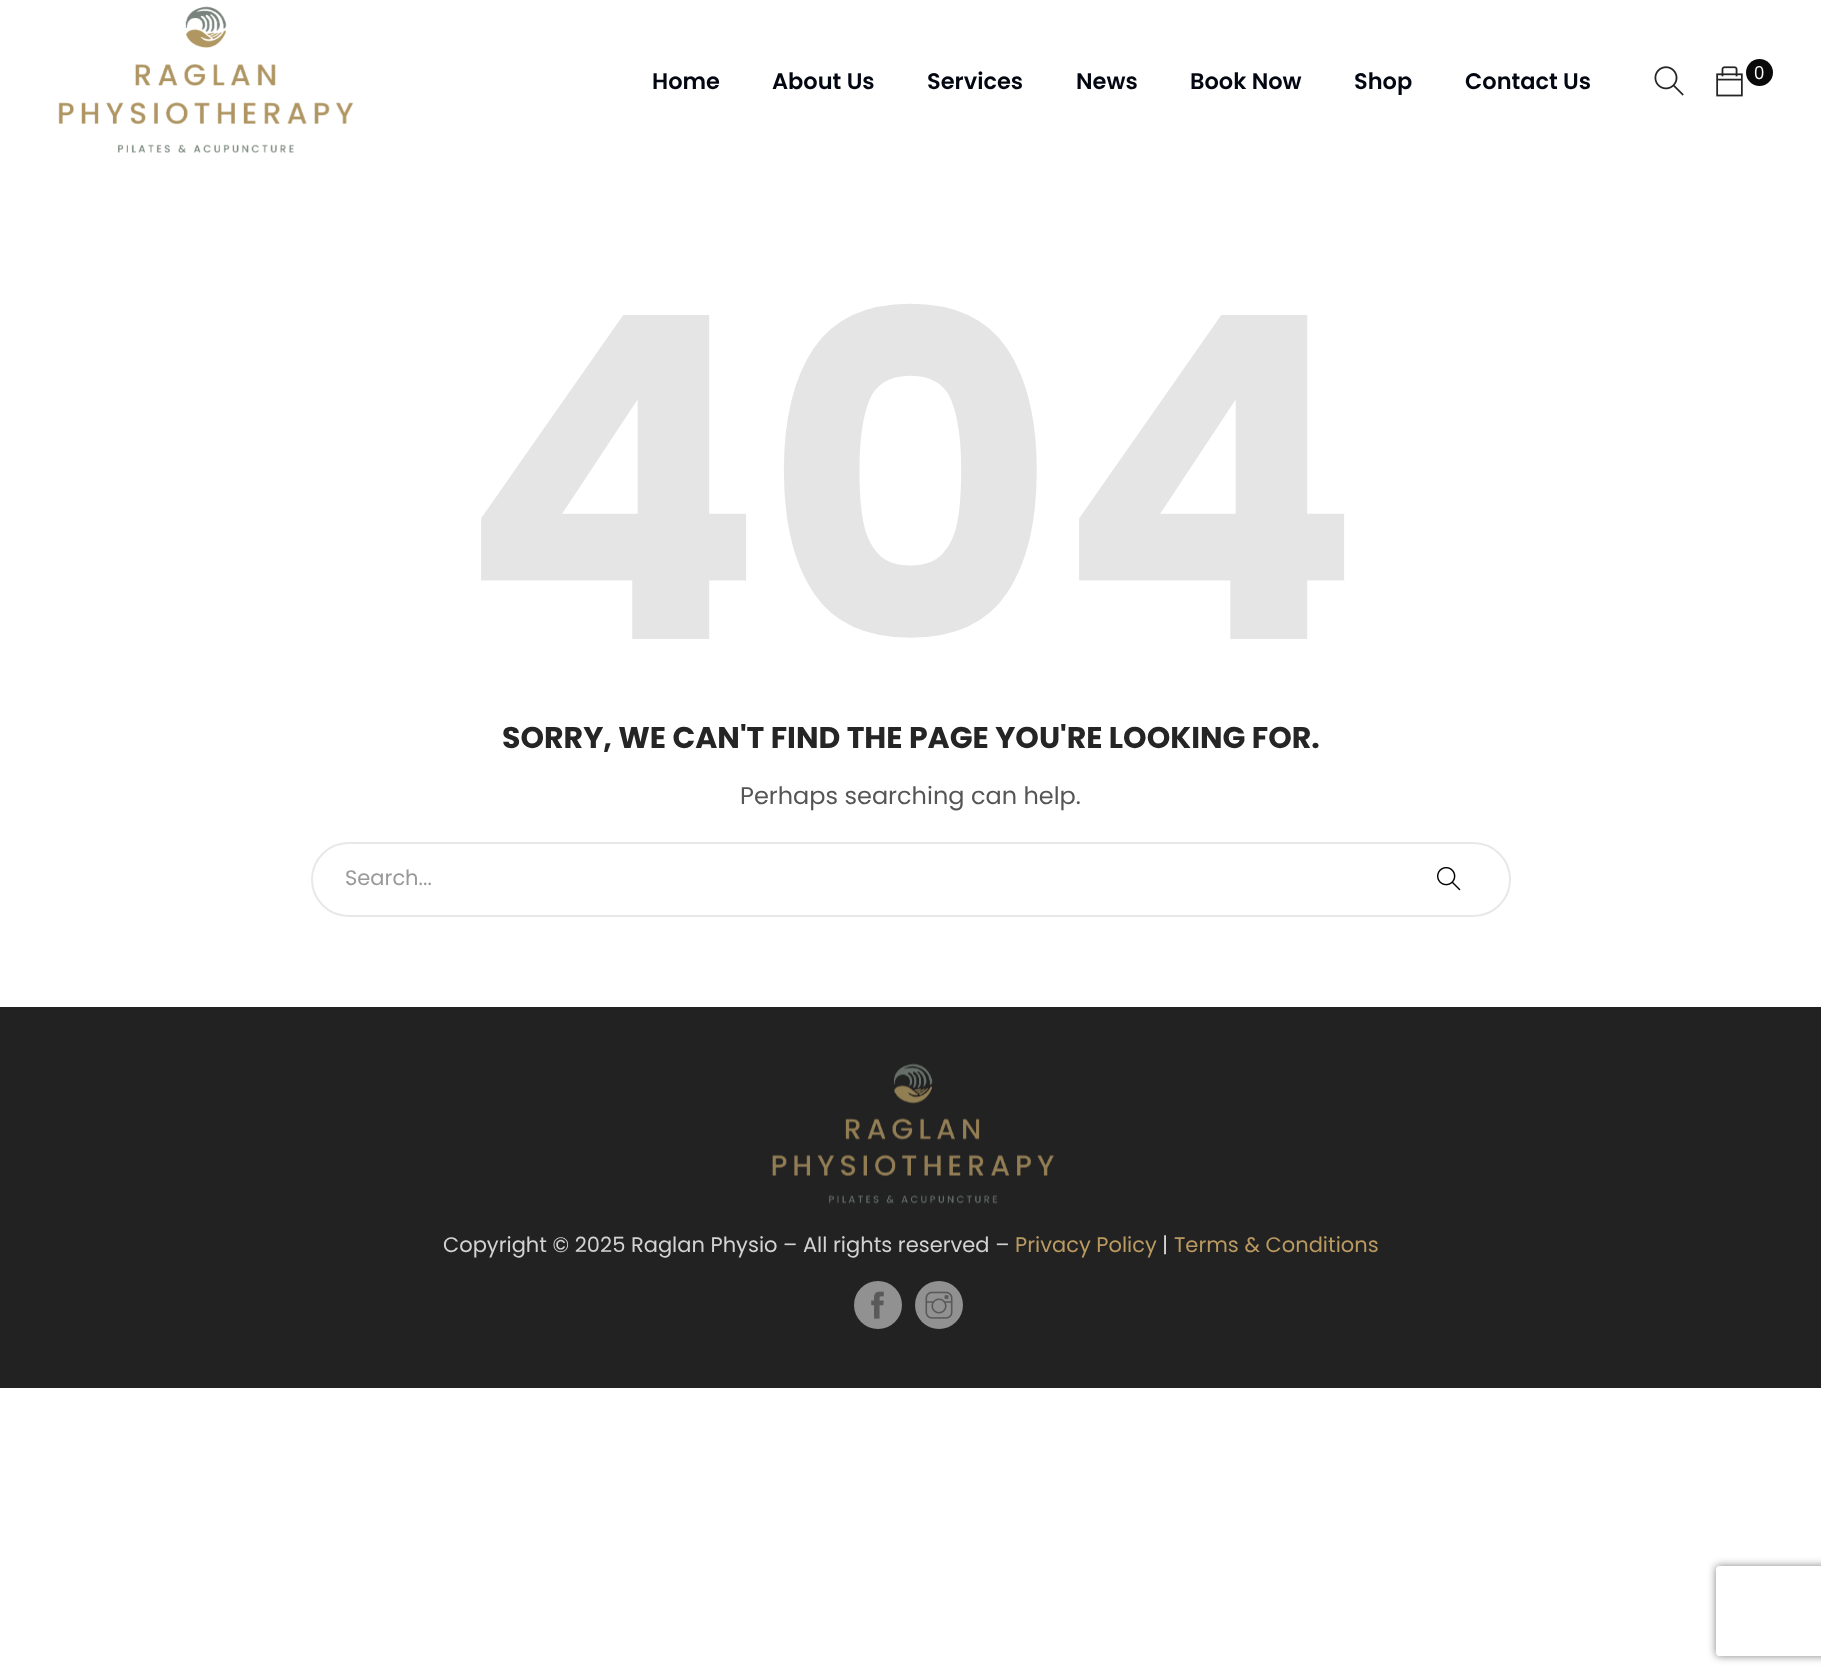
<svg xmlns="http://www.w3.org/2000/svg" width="1821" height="1677">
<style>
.a{font:600 22.5px Poppins;fill:#030712}
.b{font:18px Open Sans;fill:#fff}
.c{font:bold 450px Poppins;fill:#e5e5e5}
.d{font:bold 30px Poppins;fill:#252525}
.e{font:24px Poppins;fill:#555}
.f{font:21px Poppins;fill:#999}
.g{font:21px Poppins;fill:#d3d3d3}
.h{font:21px Poppins;fill:#ba9a61}
</style>
<defs>
<clipPath id="clip1"><path d="M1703 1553h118v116h-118zm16 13h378c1.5 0 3 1.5 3 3v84c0 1.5-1.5 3-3 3h-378c-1.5 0-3-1.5-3-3v-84c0-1.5 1.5-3 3-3z" clip-rule="evenodd"/></clipPath>
</defs>
<rect width="100%" height="100%" fill="#fff"/>
<image href="1.png" x="58" y="6" width="296" height="147"/>
<image href="2.png" x="1654" y="66" width="30" height="30"/>
<image href="3.png" x="1716" y="66" width="27" height="31"/>
<circle fill="#0a0a0a" cx="1759.5" cy="72.5" r="13.5"/>
<rect fill="none" stroke="#e8e8e8" stroke-width="2" x="312" y="843" width="1198" height="73" rx="36.5"/>
<image href="4.png" x="1437" y="867" width="24" height="24"/>
<path fill="#222" d="M0 1007h1821v381H0z"/>
<image href="5.png" x="772" y="1063" width="282" height="141"/>
<circle fill="#919191" cx="878" cy="1305" r="24"/>
<image href="6.png" x="871" y="1291" width="13" height="28"/>
<circle fill="#919191" cx="939" cy="1305" r="24"/>
<image href="7.png" x="925" y="1291" width="28" height="28"/>
<g clip-path="url(#clip1)">
<rect fill="#808080" filter="blur(4px)" x="1716" y="1566" width="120" height="90" rx="3"/>
</g>
<text class="a" x="652" y="89">Home</text>
<text class="a" x="772" y="89">About Us</text>
<text class="a" x="927" y="89">Services</text>
<text class="a" x="1076" y="89">News</text>
<text class="a" x="1190" y="89">Book Now</text>
<text class="a" x="1354" y="89">Shop</text>
<text class="a" x="1465" y="89">Contact Us</text>
<text class="b" x="1754" y="79">0</text>
<text class="c" x="459" y="639">404</text>
<text class="d" x="502" y="748">SORRY, WE CAN'T FIND THE PAGE YOU'RE LOOKING FOR.</text>
<text class="e" x="740" y="804">Perhaps searching can help.</text>
<text class="f" x="345" y="885">Search...</text>
<text class="g" x="443" y="1252">Copyright © 2025 Raglan Physio – All rights reserved –</text>
<text class="h" x="1015" y="1252">Privacy Policy</text>
<text class="g" x="1162" y="1252">|</text>
<text class="h" x="1174" y="1252">Terms &amp; Conditions</text>
</svg>
